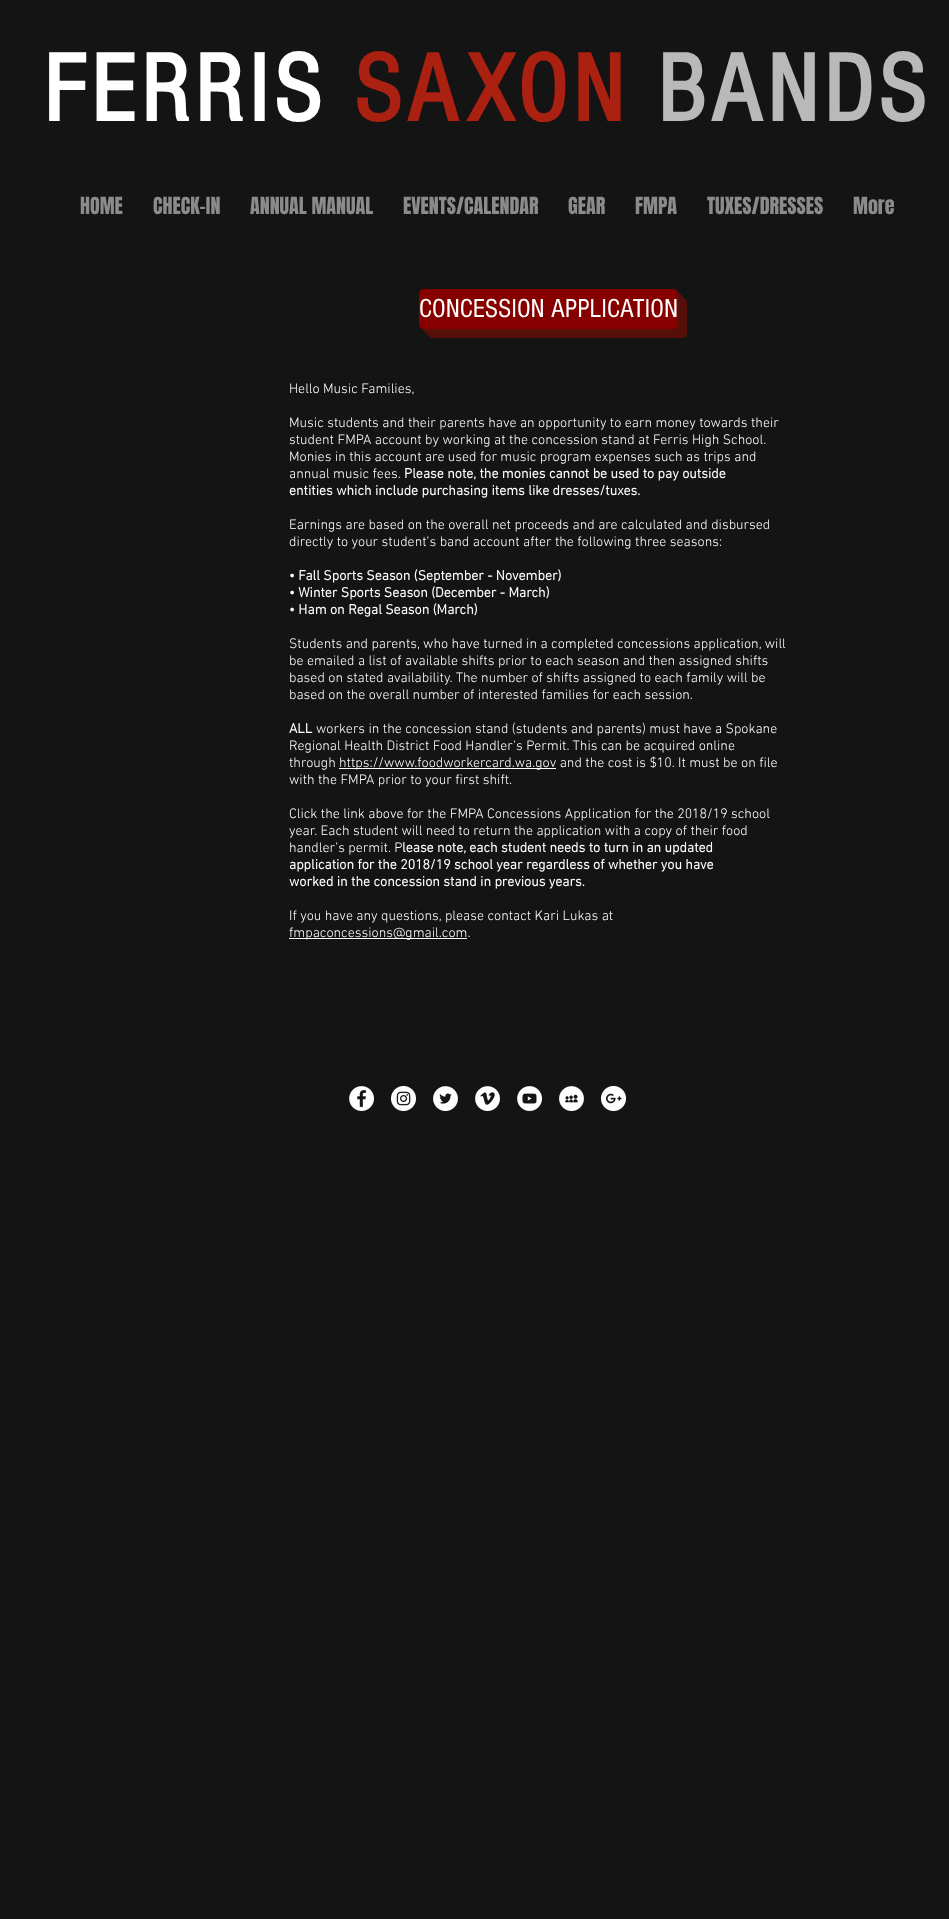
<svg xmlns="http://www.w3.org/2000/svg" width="949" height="1919">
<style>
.a{font:bold 99px 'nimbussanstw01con';letter-spacing:5px;fill:#fff}
.b{font:bold 99px 'nimbussanstw01con';letter-spacing:5px;fill:#aa2011}
.c{font:bold 99px 'nimbussanstw01con';letter-spacing:5px;fill:#b9b9b9}
.d{font:20px Anton;fill:#8b8b8b}
.e{font:27px 'nimbussanstw01con';fill:#fff}
.f{font:300 14px 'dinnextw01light';fill:#fff}
.g{font:bold 14px 'dinnextw01light';fill:#fff}
</style>
<rect width="100%" height="100%" fill="#141414"/>
<path fill="#551009" d="M428 329v4c0 3 2 5 5 5h249c3 0 5-2 5-5v-30c0-3-2-5-5-5h-4v26c0 3-2 5-5 5z"/>
<path fill="#551009" d="M426 329v2c0 3 2 5 5 5h249c3 0 5-2 5-5v-30c0-3-2-5-5-5h-2v28c0 3-2 5-5 5z"/>
<path fill="#551009" d="M424 329c0 3 2 5 5 5h249c3 0 5-2 5-5v-30c0-3-2-5-5-5v30c0 3-2 5-5 5z"/>
<path fill="#551009" d="M422 329c1 2 3 3 5 3h249c3 0 5-2 5-5v-30c0-2-1-4-3-5v22c0 4 2 15-5 15z"/>
<path fill="#551009" d="M421 328c1 1 2 2 4 2h249c3 0 5-2 5-5v-30c0-2-1-3-2-4c1 1 1 2 1 3v30c0 3-2 5-5 5h-249c-1 0-2 0-3-1z"/>
<rect fill="#870000" x="419" y="289" width="259" height="40" rx="5"/>
<path fill="#fff" d="M339 768h217v1H339z"/>
<path fill="#fff" d="M289 938h178v1H289z"/>
<image href="1.png" x="349" y="1086" width="25" height="25"/>
<image href="2.png" x="391" y="1086" width="25" height="25"/>
<image href="3.png" x="433" y="1086" width="25" height="25"/>
<image href="4.png" x="475" y="1086" width="25" height="25"/>
<image href="5.png" x="517" y="1086" width="25" height="25"/>
<image href="6.png" x="559" y="1086" width="25" height="25"/>
<image href="7.png" x="601" y="1086" width="25" height="25"/>
<text class="a" x="44" y="121">FERRIS</text>
<text class="b" x="354" y="121">SAXON</text>
<text class="c" x="657" y="121">BANDS</text>
<text class="d" x="80" y="214">HOME</text>
<text class="d" x="153" y="214">CHECK-IN</text>
<text class="d" x="250" y="214">ANNUAL MANUAL</text>
<text class="d" x="403" y="214">EVENTS/CALENDAR</text>
<text class="d" x="568" y="214">GEAR</text>
<text class="d" x="635" y="214">FMPA</text>
<text class="d" x="707" y="214">TUXES/DRESSES</text>
<text class="d" x="853" y="214">More</text>
<text class="e" x="419" y="317">CONCESSION APPLICATION</text>
<text class="f" x="289" y="393">Hello Music Families,</text>
<text class="f" x="289" y="427">Music students and their parents have an opportunity to earn money towards their</text>
<text class="f" x="289" y="444">student FMPA account by working at the concession stand at Ferris High School.</text>
<text class="f" x="289" y="461">Monies in this account are used for music program expenses such as trips and</text>
<text class="f" x="289" y="478">annual music fees.</text>
<text class="g" x="404" y="478">Please note, the monies cannot be used to pay outside</text>
<text class="g" x="289" y="495">entities which include purchasing items like dresses/tuxes.</text>
<text class="f" x="289" y="529">Earnings are based on the overall net proceeds and are calculated and disbursed</text>
<text class="f" x="289" y="546">directly to your student’s band account after the following three seasons:</text>
<text class="g" x="289" y="580">• Fall Sports Season (September - November)</text>
<text class="g" x="289" y="597">• Winter Sports Season (December - March)</text>
<text class="g" x="289" y="614">• Ham on Regal Season (March)</text>
<text class="f" x="289" y="648">Students and parents, who have turned in a completed concessions application, will</text>
<text class="f" x="289" y="665">be emailed a list of available shifts prior to each season and then assigned shifts</text>
<text class="f" x="289" y="682">based on stated availability. The number of shifts assigned to each family will be</text>
<text class="f" x="289" y="699">based on the overall number of interested families for each session.</text>
<text class="g" x="289" y="733">ALL</text>
<text class="f" x="316" y="733">workers in the concession stand (students and parents) must have a Spokane</text>
<text class="f" x="289" y="750">Regional Health District Food Handler’s Permit. This can be acquired online</text>
<text class="f" x="289" y="767">through</text>
<text class="f" x="339" y="767">https://www.foodworkercard.wa.gov and the cost is $10. It must be on file</text>
<text class="f" x="289" y="784">with the FMPA prior to your first shift.</text>
<text class="f" x="289" y="818">Click the link above for the FMPA Concessions Application for the 2018/19 school</text>
<text class="f" x="289" y="835">year. Each student will need to return the application with a copy of their food</text>
<text class="f" x="289" y="852">handler’s permit. P</text>
<text class="g" x="402" y="852">lease note, each student needs to turn in an updated</text>
<text class="g" x="289" y="869">application for the 2018/19 school year regardless of whether you have</text>
<text class="g" x="289" y="886">worked in the concession stand in previous years.</text>
<text class="f" x="289" y="920">If you have any questions, please contact Kari Lukas at</text>
<text class="f" x="289" y="937">fmpaconcessions@gmail.com.</text>
</svg>
